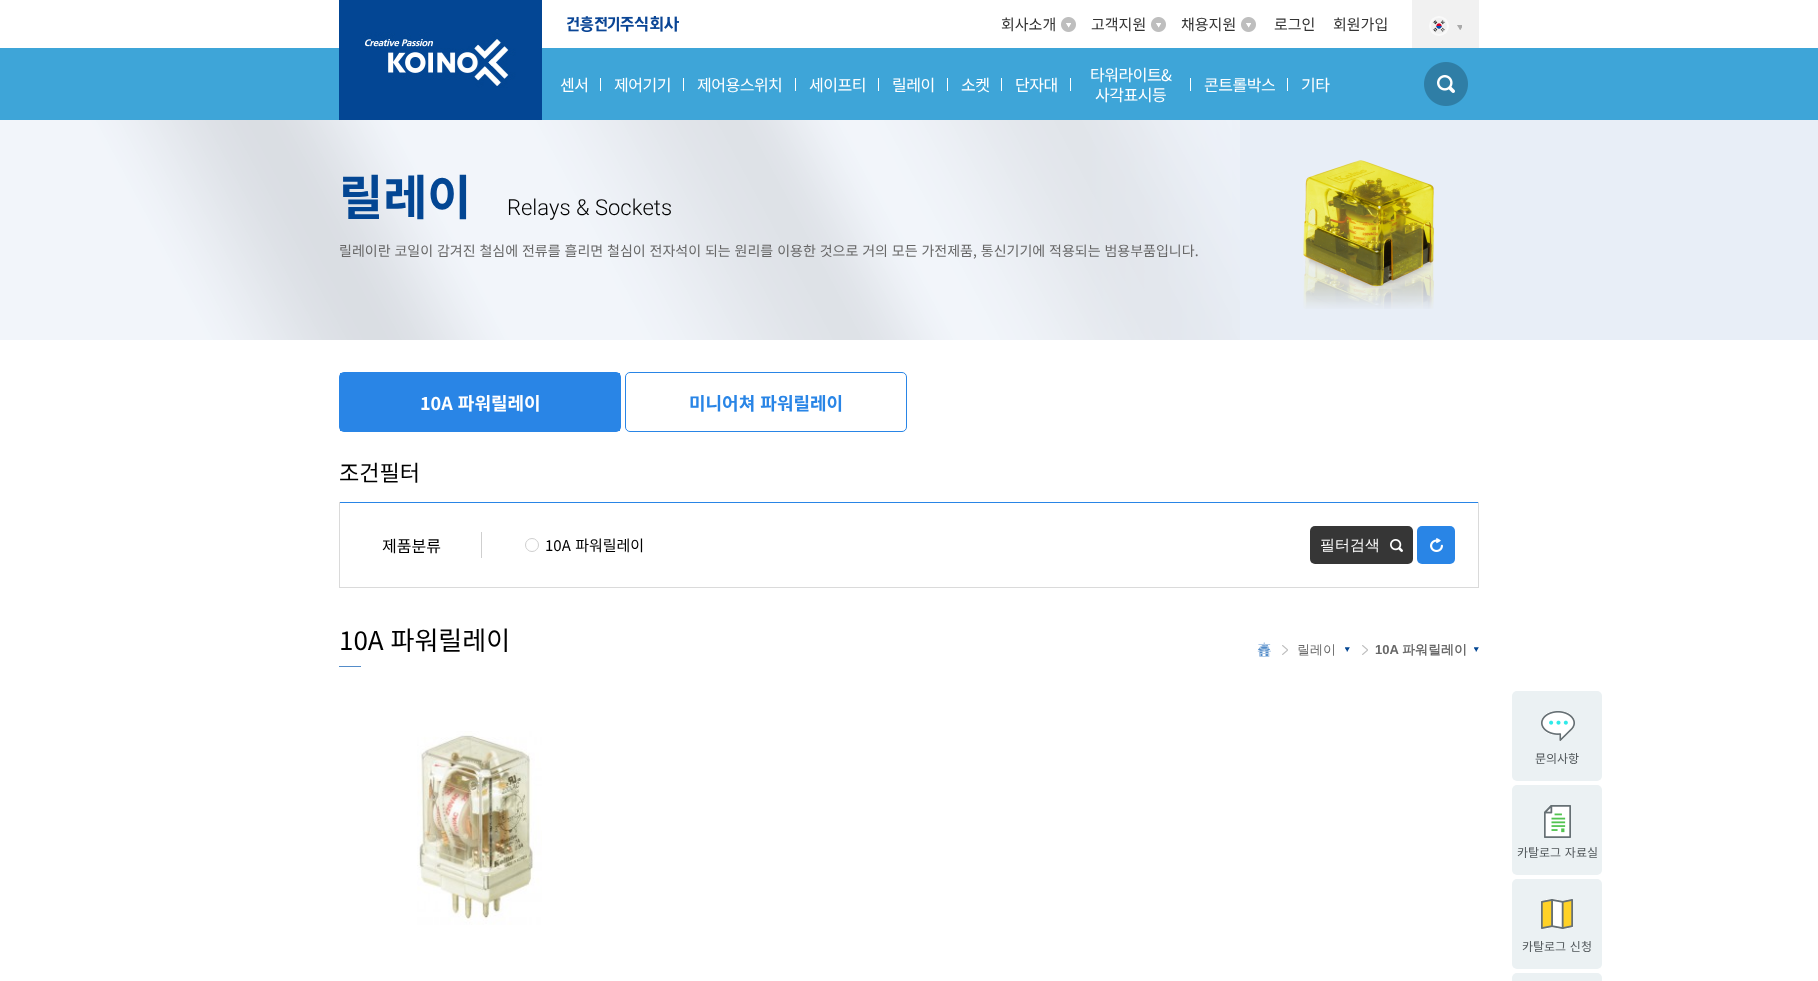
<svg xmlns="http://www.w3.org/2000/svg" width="1818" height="981">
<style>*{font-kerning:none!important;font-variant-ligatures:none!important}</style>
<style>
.a{font:15px Noto Sans KR;fill:#333}
.b{font:16px Noto Sans KR;letter-spacing:-0.5px;fill:#fff}
.c{font:bold 48px Noto Sans KR;fill:#034693}
.d{font:300 22px Roboto;fill:#000}
.e{font:14px Noto Sans KR;fill:#686868}
.f{font:bold 18px Noto Sans KR;fill:#fff}
.g{font:bold 18px Noto Sans KR;fill:#2985e6}
.h{font:22px Noto Sans KR;fill:#000}
.i{font:16px Noto Sans KR;fill:#000}
.j{font:15px Noto Sans KR;fill:#000}
.k{font:500 15px WenQuanYi Zen Hei;fill:#fff}
.l{font:26px Noto Sans KR;fill:#000}
.m{font:16px Noto Sans KR;fill:#b0cae6}
.n{font:500 13px WenQuanYi Zen Hei;fill:#686868}
.o{font:bold 13px Liberation Sans;fill:#686868}
.p{font:bold 13px WenQuanYi Zen Hei;fill:#686868}
.q{font:12px Noto Sans KR;fill:#51575a}
</style>
<rect width="100%" height="100%" fill="#fff"/>
<path fill="#3ea5d8" d="M0 48h1818v72H0z"/>
<image href="1.png" x="339" y="0" width="203" height="120"/>
<image href="2.png" x="567" y="16" width="112" height="16"/>
<image href="3.png" x="1061" y="17" width="15" height="15"/>
<image href="3.png" x="1151" y="17" width="15" height="15"/>
<image href="3.png" x="1241" y="17" width="15" height="15"/>
<path fill="#f1f1f1" d="M1412 0h67v48H1412z"/>
<image href="4.png" x="1429" y="16" width="20" height="20"/>
<image href="5.png" x="1457" y="25" width="5" height="5"/>
<path fill="#fff" d="M600 78h1v13H600z"/>
<path fill="#fff" d="M683 78h1v13H683z"/>
<path fill="#fff" d="M795 78h1v13H795z"/>
<path fill="#fff" d="M878 78h1v13H878z"/>
<path fill="#fff" d="M947 78h1v13H947z"/>
<path fill="#fff" d="M1001 78h1v13H1001z"/>
<path fill="#fff" d="M1070 78h1v13H1070z"/>
<path fill="#fff" d="M1190 78h1v13H1190z"/>
<path fill="#fff" d="M1287 78h1v13H1287z"/>
<image href="6.png" x="1424" y="62" width="44" height="44"/>
<path fill="#e8eef7" d="M1240 120h578v220H1240z"/>
<image href="7.png" x="0" y="120" width="1240" height="220"/>
<image href="8.png" x="1303" y="160" width="131" height="149"/>
<rect fill="none" stroke="#2985e6" x="339.5" y="372.5" width="281" height="59" rx="4.5"/>
<path fill="#2985e6" d="M340 373h280v58H340z"/>
<rect fill="none" stroke="#2985e6" x="625.5" y="372.5" width="281" height="59" rx="4.5"/>
<path fill="#2985e6" d="M339 502h1140v1H339z"/>
<path fill="#dadada" d="M1478 502h1v86H1478z"/>
<path fill="#dadada" d="M339 587h1140v1H339z"/>
<path fill="#dadada" d="M339 502h1v86H339z"/>
<path fill="#cfcfcf" d="M481 532h1v26H481z"/>
<circle fill="none" stroke="#cfcfcf" cx="532" cy="545" r="6.5"/>
<rect fill="#363636" x="1310" y="526" width="103" height="38" rx="5"/>
<image href="9.png" x="1390" y="539" width="13" height="13"/>
<rect fill="#2985e6" x="1417" y="526" width="38" height="38" rx="5"/>
<image href="10.png" x="1430" y="538" width="13" height="14"/>
<path fill="#538cc9" d="M339 666h22v1H339z"/>
<image href="11.png" x="1258" y="644" width="12" height="12"/>
<image href="12.png" x="1282" y="645" width="6" height="10"/>
<image href="13.png" x="1345" y="647" width="5" height="5"/>
<image href="12.png" x="1362" y="645" width="6" height="10"/>
<image href="13.png" x="1474" y="647" width="5" height="5"/>
<image href="14.png" x="417" y="731" width="125" height="194"/>
<rect fill="#ebf1f3" x="1512" y="691" width="90" height="90" rx="5"/>
<image href="15.png" x="1541" y="711" width="34" height="30"/>
<rect fill="#ebf1f3" x="1512" y="785" width="90" height="90" rx="5"/>
<image href="16.png" x="1544" y="805" width="27" height="33"/>
<rect fill="#ebf1f3" x="1512" y="879" width="90" height="90" rx="5"/>
<image href="17.png" x="1541" y="899" width="32" height="30"/>
<rect fill="#ebf1f3" x="1512" y="973" width="90" height="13" rx="5"/>
<text class="a" x="1001" y="30">회사소개</text>
<text class="a" x="1091" y="30">고객지원</text>
<text class="a" x="1181" y="30">채용지원</text>
<text class="a" x="1274" y="30">로그인</text>
<text class="a" x="1333" y="30">회원가입</text>
<text class="b" x="560" y="91">센서</text>
<text class="b" x="614" y="91">제어기기</text>
<text class="b" x="697" y="91">제어용스위치</text>
<text class="b" x="809" y="91">세이프티</text>
<text class="b" x="892" y="91">릴레이</text>
<text class="b" x="961" y="91">소켓</text>
<text class="b" x="1015" y="91">단자대</text>
<text class="b" x="1090" y="81">타워라이트&amp;</text>
<text class="b" x="1095" y="101">사각표시등</text>
<text class="b" x="1204" y="91">콘트롤박스</text>
<text class="b" x="1301" y="91">기타</text>
<text class="c" x="339" y="215">릴레이</text>
<text class="d" x="507" y="215">Relays &amp; Sockets</text>
<text class="e" x="339" y="256" word-spacing="0.75">릴레이란 코일이 감겨진 철심에 전류를 흘리면 철심이 전자석이 되는 원리를 이용한 것으로 거의 모든 가전제품, 통신기기에 적용되는 범용부품입니다.</text>
<text class="f" x="420" y="410" word-spacing="1">10A 파워릴레이</text>
<text class="g" x="689" y="410" word-spacing="1">미니어쳐 파워릴레이</text>
<text class="h" x="339" y="481">조건필터</text>
<text class="i" x="382" y="552">제품분류</text>
<text class="j" x="545" y="551" word-spacing="1">10A 파워릴레이</text>
<text class="k" x="1320" y="550">필터검색</text>
<text class="l" x="339" y="650" word-spacing="1">10A 파워릴레이</text>
<text class="m" x="1257" y="656">홈</text>
<text class="n" x="1297" y="654">릴레이</text>
<text class="o" x="1375" y="654">10A</text>
<text class="p" x="1402" y="654">파워릴레이</text>
<text class="q" x="1535" y="763">문의사항</text>
<text class="q" x="1517" y="857" word-spacing="1">카탈로그 자료실</text>
<text class="q" x="1522" y="951" word-spacing="1">카탈로그 신청</text>
</svg>
